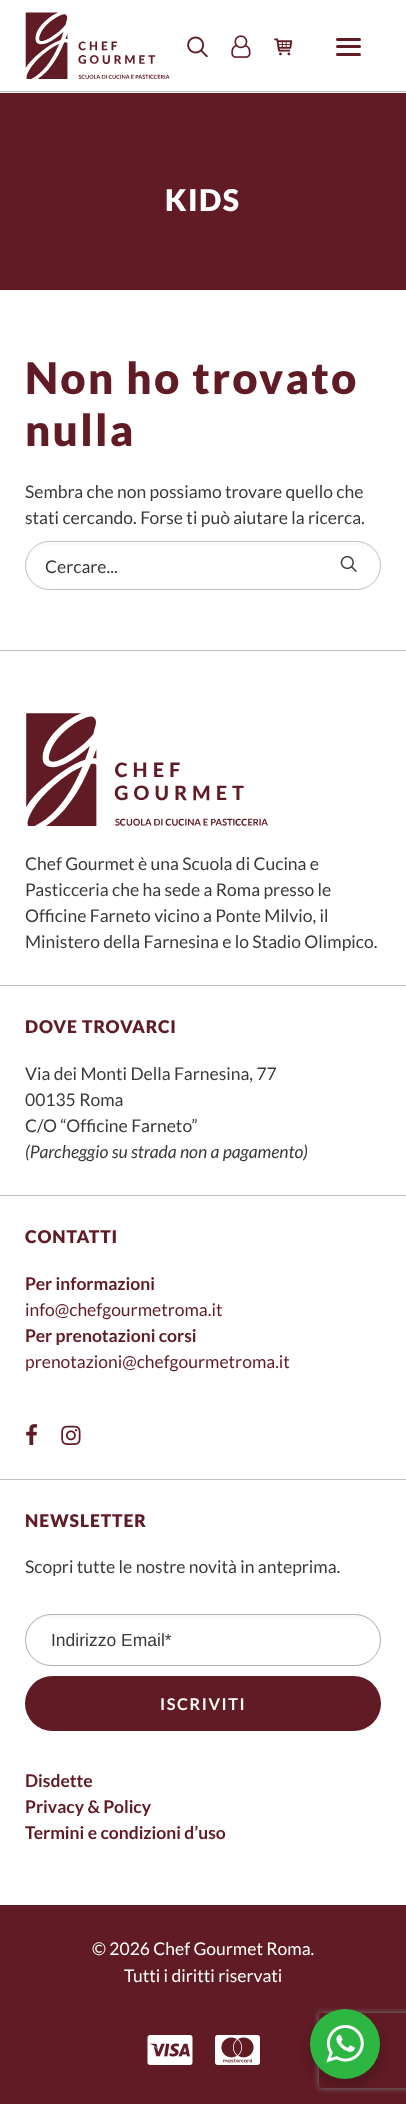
<svg xmlns="http://www.w3.org/2000/svg" width="406" height="2104">
<style>
.a{font:900 30px Lato;letter-spacing:1.5px;fill:#fff}
.b{font:900 43.75px Lato;letter-spacing:2.25px;fill:#601b24}
.c{font:17.5px Lato;fill:#3a3a3a}
.d{font:900 17.5px Lato;letter-spacing:0.9px;fill:#601b24}
.e{font:italic 17.5px Lato;fill:#3a3a3a}
.f{font:bold 17.5px Lato;fill:#601b24}
.g{font:17.5px Lato;fill:#601b24}
.h{font:17.5px Liberation Sans;fill:#3a3a3a}
.i{font:bold 16.25px Lato;letter-spacing:1.6px;fill:#fff}
.j{font:17.5px Lato;fill:#fff}
</style>
<defs>
<clipPath id="clip1"><path d="M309 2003h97v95h-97zm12.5 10h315c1.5 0 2.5 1 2.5 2.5v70c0 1.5-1 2.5-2.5 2.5h-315c-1.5 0-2.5-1-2.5-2.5v-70c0-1.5 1-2.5 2.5-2.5z" clip-rule="evenodd"/></clipPath>
</defs>
<rect width="100%" height="100%" fill="#fff"/>
<path fill="#bebebe" d="M0 91h406v1H0z"/>
<image href="1.png" x="25" y="12" width="145" height="67"/>
<image href="2.png" x="187" y="36" width="21" height="22"/>
<image href="3.png" x="231" y="35" width="20" height="23"/>
<image href="4.png" x="274" y="38" width="19" height="18"/>
<rect fill="#601b24" x="336" y="45" width="25" height="3" rx="1.5"/>
<rect fill="#601b24" x="336" y="38" width="25" height="3" rx="1.5"/>
<rect fill="#601b24" x="336" y="53" width="25" height="3" rx="1.5"/>
<path fill="#601b24" d="M0 93h406v197H0z"/>
<path fill="#f9f9f9" d="M49 545h308c13 0 22 9 23 22c1-13-10-24-23-24h-308c-13 0-24 11-23 24c1-13 11-22 23-22z"/>
<rect fill="none" stroke="#bebebe" x="25.5" y="541.5" width="355" height="48" rx="24"/>
<image href="5.png" x="340" y="555" width="17" height="17"/>
<path fill="#bebebe" d="M0 650h406v1H0z"/>
<path fill="#bebebe" d="M0 985h406v495H0z"/>
<image href="6.png" x="26" y="713" width="242" height="113"/>
<path fill="#fff" d="M0 986h406v209H0z"/>
<path fill="#fff" d="M0 1196h406v283H0z"/>
<image href="7.png" x="26" y="1424" width="12" height="21"/>
<image href="8.png" x="61" y="1425" width="20" height="20"/>
<path fill="#f9f9f9" d="M51 1618h304c14 0 24 10 25 23c1-14-11-26-25-26h-304c-14 0-26 12-25 26c1-13 11-23 25-23z"/>
<rect fill="none" stroke="#abb0b2" x="25.5" y="1614.5" width="355" height="51" rx="25.5"/>
<rect fill="#601b24" x="25" y="1676" width="356" height="55" rx="27.5"/>
<path fill="#601b24" d="M0 1905h406v199H0z"/>
<image href="9.png" x="147" y="2035" width="46" height="30"/>
<image href="10.png" x="215" y="2035" width="45" height="30"/>
<rect fill="#00000024" filter="blur(5px)" x="308" y="2014" width="75" height="75" rx="37.5"/>
<g clip-path="url(#clip1)">
<rect fill="#808080" filter="blur(3px)" x="319" y="2013" width="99" height="75" rx="2.5"/>
</g>
<circle fill="#2db742" cx="345" cy="2044" r="35"/>
<image href="11.png" x="326" y="2025" width="38" height="38"/>
<text class="a" x="165" y="211">KIDS</text>
<text class="b" x="25" y="394">Non ho trovato</text>
<text class="b" x="25" y="446">nulla</text>
<text class="c" x="25" y="498">Sembra che non possiamo trovare quello che</text>
<text class="c" x="25" y="524">stati cercando. Forse ti può aiutare la ricerca.</text>
<text class="c" x="45" y="573">Cercare...</text>
<text class="c" x="25" y="870">Chef Gourmet è una Scuola di Cucina e</text>
<text class="c" x="25" y="896">Pasticceria che ha sede a Roma presso le</text>
<text class="c" x="25" y="922">Officine Farneto vicino a Ponte Milvio, il</text>
<text class="c" x="25" y="948">Ministero della Farnesina e lo Stadio Olimpico.</text>
<text class="d" x="25" y="1033">DOVE TROVARCI</text>
<text class="c" x="25" y="1080">Via dei Monti Della Farnesina, 77</text>
<text class="c" x="25" y="1106">00135 Roma</text>
<text class="c" x="25" y="1132">C/O “Officine Farneto”</text>
<text class="e" x="25" y="1158">(Parcheggio su strada non a pagamento)</text>
<text class="d" x="25" y="1243">CONTATTI</text>
<text class="f" x="25" y="1290">Per informazioni</text>
<text class="g" x="25" y="1316">info@chefgourmetroma.it</text>
<text class="f" x="25" y="1342">Per prenotazioni corsi</text>
<text class="g" x="25" y="1368">prenotazioni@chefgourmetroma.it</text>
<text class="d" x="25" y="1527">NEWSLETTER</text>
<text class="c" x="25" y="1573">Scopri tutte le nostre novità in anteprima.</text>
<text class="h" x="51" y="1646">Indirizzo Email*</text>
<text class="i" x="160" y="1710">ISCRIVITI</text>
<text class="f" x="25" y="1787">Disdette</text>
<text class="f" x="25" y="1813">Privacy &amp; Policy</text>
<text class="f" x="25" y="1839">Termini e condizioni d’uso</text>
<text class="j" x="92" y="1955">© 2026 Chef Gourmet Roma.</text>
<text class="j" x="124" y="1982">Tutti i diritti riservati</text>
</svg>
